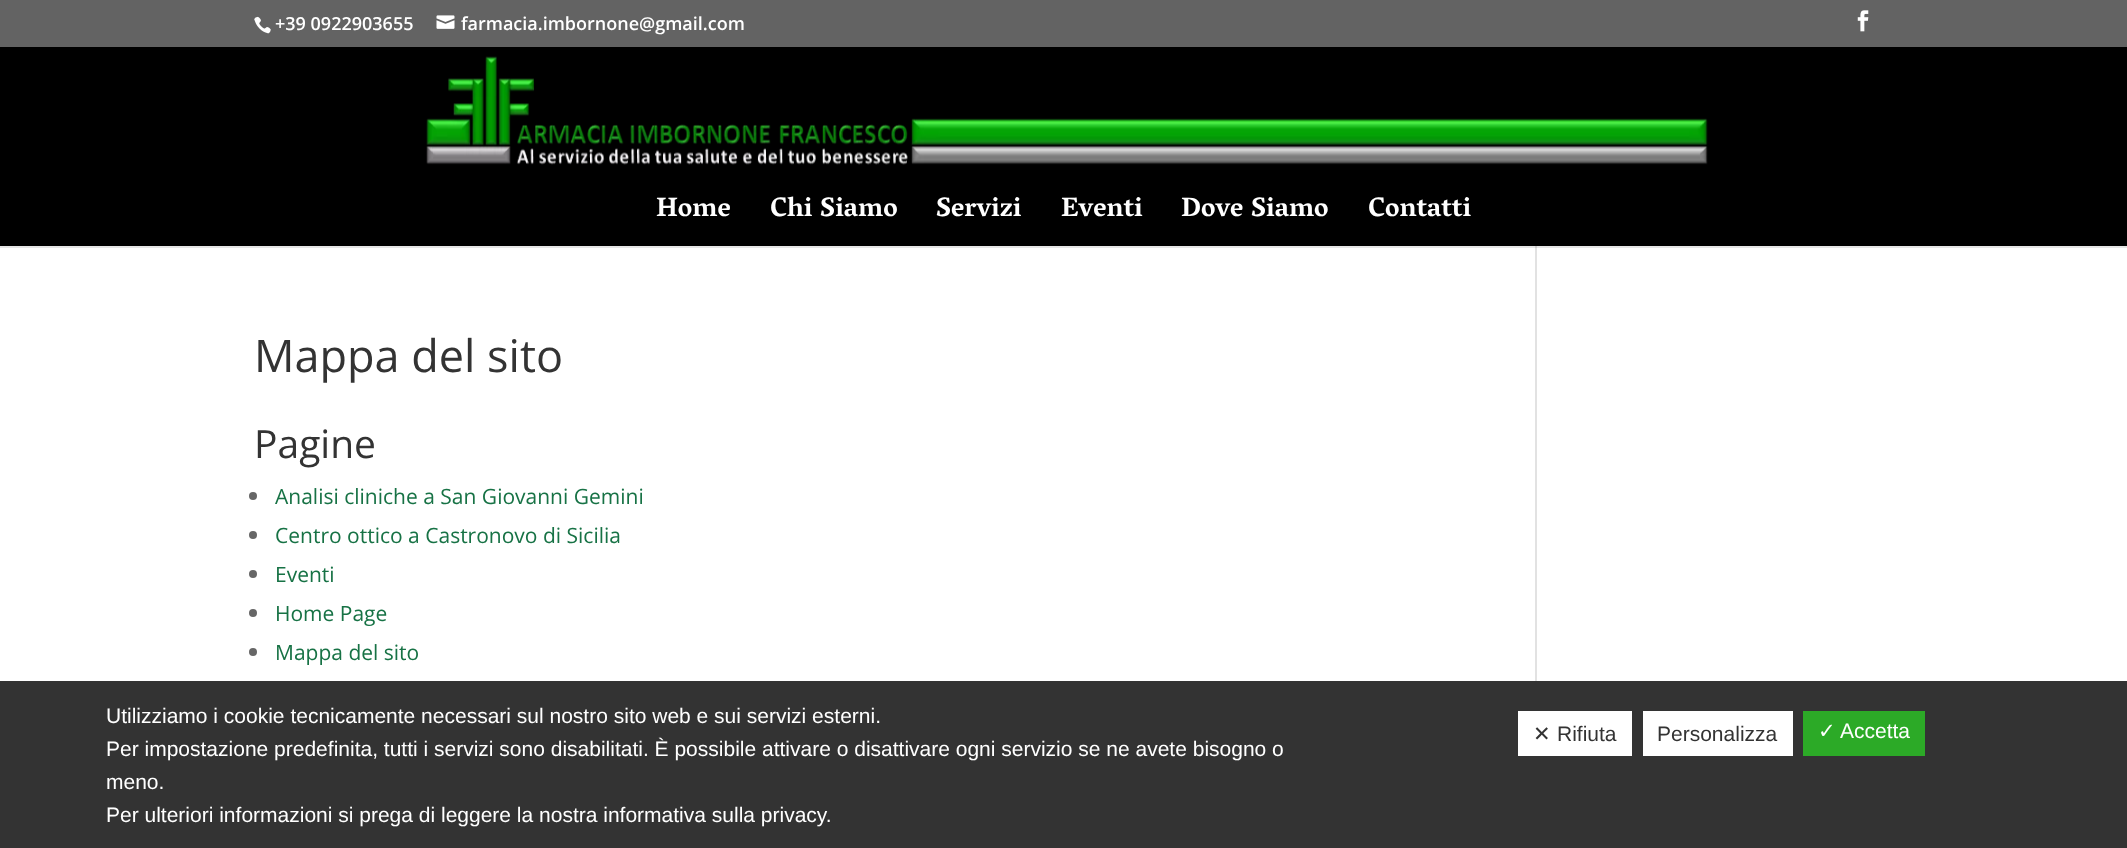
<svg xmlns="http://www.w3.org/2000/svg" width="2127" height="848">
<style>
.a{font:600 18px Open Sans;fill:#fff}
.b{font:bold 27px Vesper Libre;fill:#fff}
.c{font:45px Open Sans;fill:#333}
.d{font:39px Open Sans;fill:#333}
.e{font:21px Open Sans;fill:#177245}
.f{font:21px Liberation Sans;fill:#fff}
.g{font:21px DejaVu Sans;fill:#333}
.h{font:21px Liberation Sans;fill:#333}
.i{font:21px DejaVu Sans;fill:#fff}
</style>
<rect width="100%" height="100%" fill="#fff"/>
<path fill="#333" d="M0 681h2127v167H0z"/>
<path fill="#e6e6e6" d="M0 246h2127v2H0z"/>
<path fill="#636363" d="M0 0h2127v47H0z"/>
<image href="1.png" x="254" y="16" width="17" height="18"/>
<image href="2.png" x="436" y="15" width="19" height="14"/>
<image href="3.png" x="1857" y="10" width="12" height="22"/>
<path fill="#000" d="M0 47h2127v199H0z"/>
<image href="4.png" x="426" y="56" width="1282" height="109"/>
<circle fill="#666" cx="253" cy="496" r="4"/>
<circle fill="#666" cx="253" cy="535" r="4"/>
<circle fill="#666" cx="253" cy="574" r="4"/>
<circle fill="#666" cx="253" cy="613" r="4"/>
<circle fill="#666" cx="253" cy="652" r="4"/>
<path fill="#e2e2e2" d="M1535 246h2v435H1535z"/>
<path fill="#cbcbcb" d="M1535 246h2v2H1535z"/>
<path fill="#fff" d="M1518 711h114v45H1518z"/>
<path fill="#fff" d="M1643 711h150v45H1643z"/>
<path fill="#2caa27" d="M1803 711h122v45H1803z"/>
<text class="a" x="275" y="30">+39 0922903655</text>
<text class="a" x="461" y="30">farmacia.imbornone@gmail.com</text>
<text class="b" x="656" y="216">Home</text>
<text class="b" x="770" y="216">Chi Siamo</text>
<text class="b" x="936" y="216">Servizi</text>
<text class="b" x="1061" y="216">Eventi</text>
<text class="b" x="1181" y="216">Dove Siamo</text>
<text class="b" x="1368" y="216">Contatti</text>
<text class="c" x="254" y="372">Mappa del sito</text>
<text class="d" x="254" y="458">Pagine</text>
<text class="e" x="275" y="504">Analisi cliniche a San Giovanni Gemini</text>
<text class="e" x="275" y="543">Centro ottico a Castronovo di Sicilia</text>
<text class="e" x="275" y="582">Eventi</text>
<text class="e" x="275" y="621">Home Page</text>
<text class="e" x="275" y="660">Mappa del sito</text>
<text class="f" x="106" y="723">Utilizziamo i cookie tecnicamente necessari sul nostro sito web e sui servizi esterni.</text>
<text class="f" x="106" y="756">Per impostazione predefinita, tutti i servizi sono disabilitati. È possibile attivare o disattivare ogni servizio se ne avete bisogno o</text>
<text class="f" x="106" y="789">meno.</text>
<text class="f" x="106" y="822">Per ulteriori informazioni si prega di leggere la nostra informativa sulla privacy.</text>
<text class="g" x="1533" y="741">✕</text>
<text class="h" x="1557" y="741">Rifiuta</text>
<text class="h" x="1657" y="741">Personalizza</text>
<text class="i" x="1818" y="738">✓</text>
<text class="f" x="1840" y="738">Accetta</text>
</svg>
